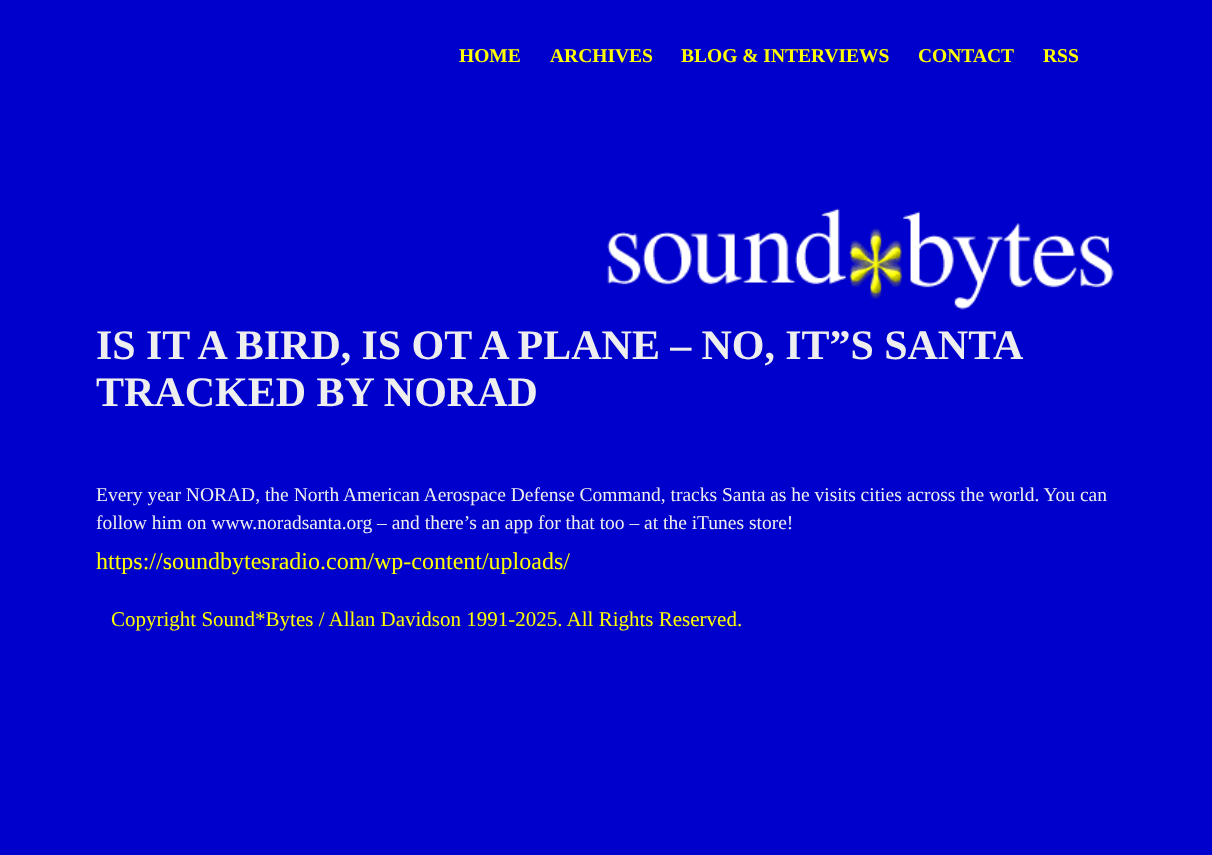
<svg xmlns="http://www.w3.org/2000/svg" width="1212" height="855">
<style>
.a{font:bold 19.5px Liberation Serif;fill:#ff0}
.b{font:bold 42px Liberation Serif;fill:#eee}
.c{font:19.5px Liberation Serif;fill:#eee}
.d{font:24px Liberation Serif;fill:#ff0}
.e{font:21px Liberation Serif;fill:#ff0}
</style>
<rect width="100%" height="100%" fill="#00c"/>
<image href="1.png" x="607" y="208" width="507" height="102"/>
<text class="a" x="459" y="62">HOME</text>
<text class="a" x="550" y="62">ARCHIVES</text>
<text class="a" x="681" y="62">BLOG &amp; INTERVIEWS</text>
<text class="a" x="918" y="62">CONTACT</text>
<text class="a" x="1043" y="62">RSS</text>
<text class="b" x="96" y="359" word-spacing="-0.25">IS IT A BIRD, IS OT A PLANE – NO, IT”S SANTA</text>
<text class="b" x="96" y="406">TRACKED BY NORAD</text>
<text class="c" x="96" y="501">Every year NORAD, the North American Aerospace Defense Command, tracks Santa as he visits cities across the world. You can</text>
<text class="c" x="96" y="529">follow him on www.noradsanta.org – and there’s an app for that too – at the iTunes store!</text>
<text class="d" x="96" y="569">https://soundbytesradio.com/wp-content/uploads/</text>
<text class="e" x="111" y="626">Copyright Sound*Bytes / Allan Davidson 1991-2025. All Rights Reserved.</text>
</svg>
